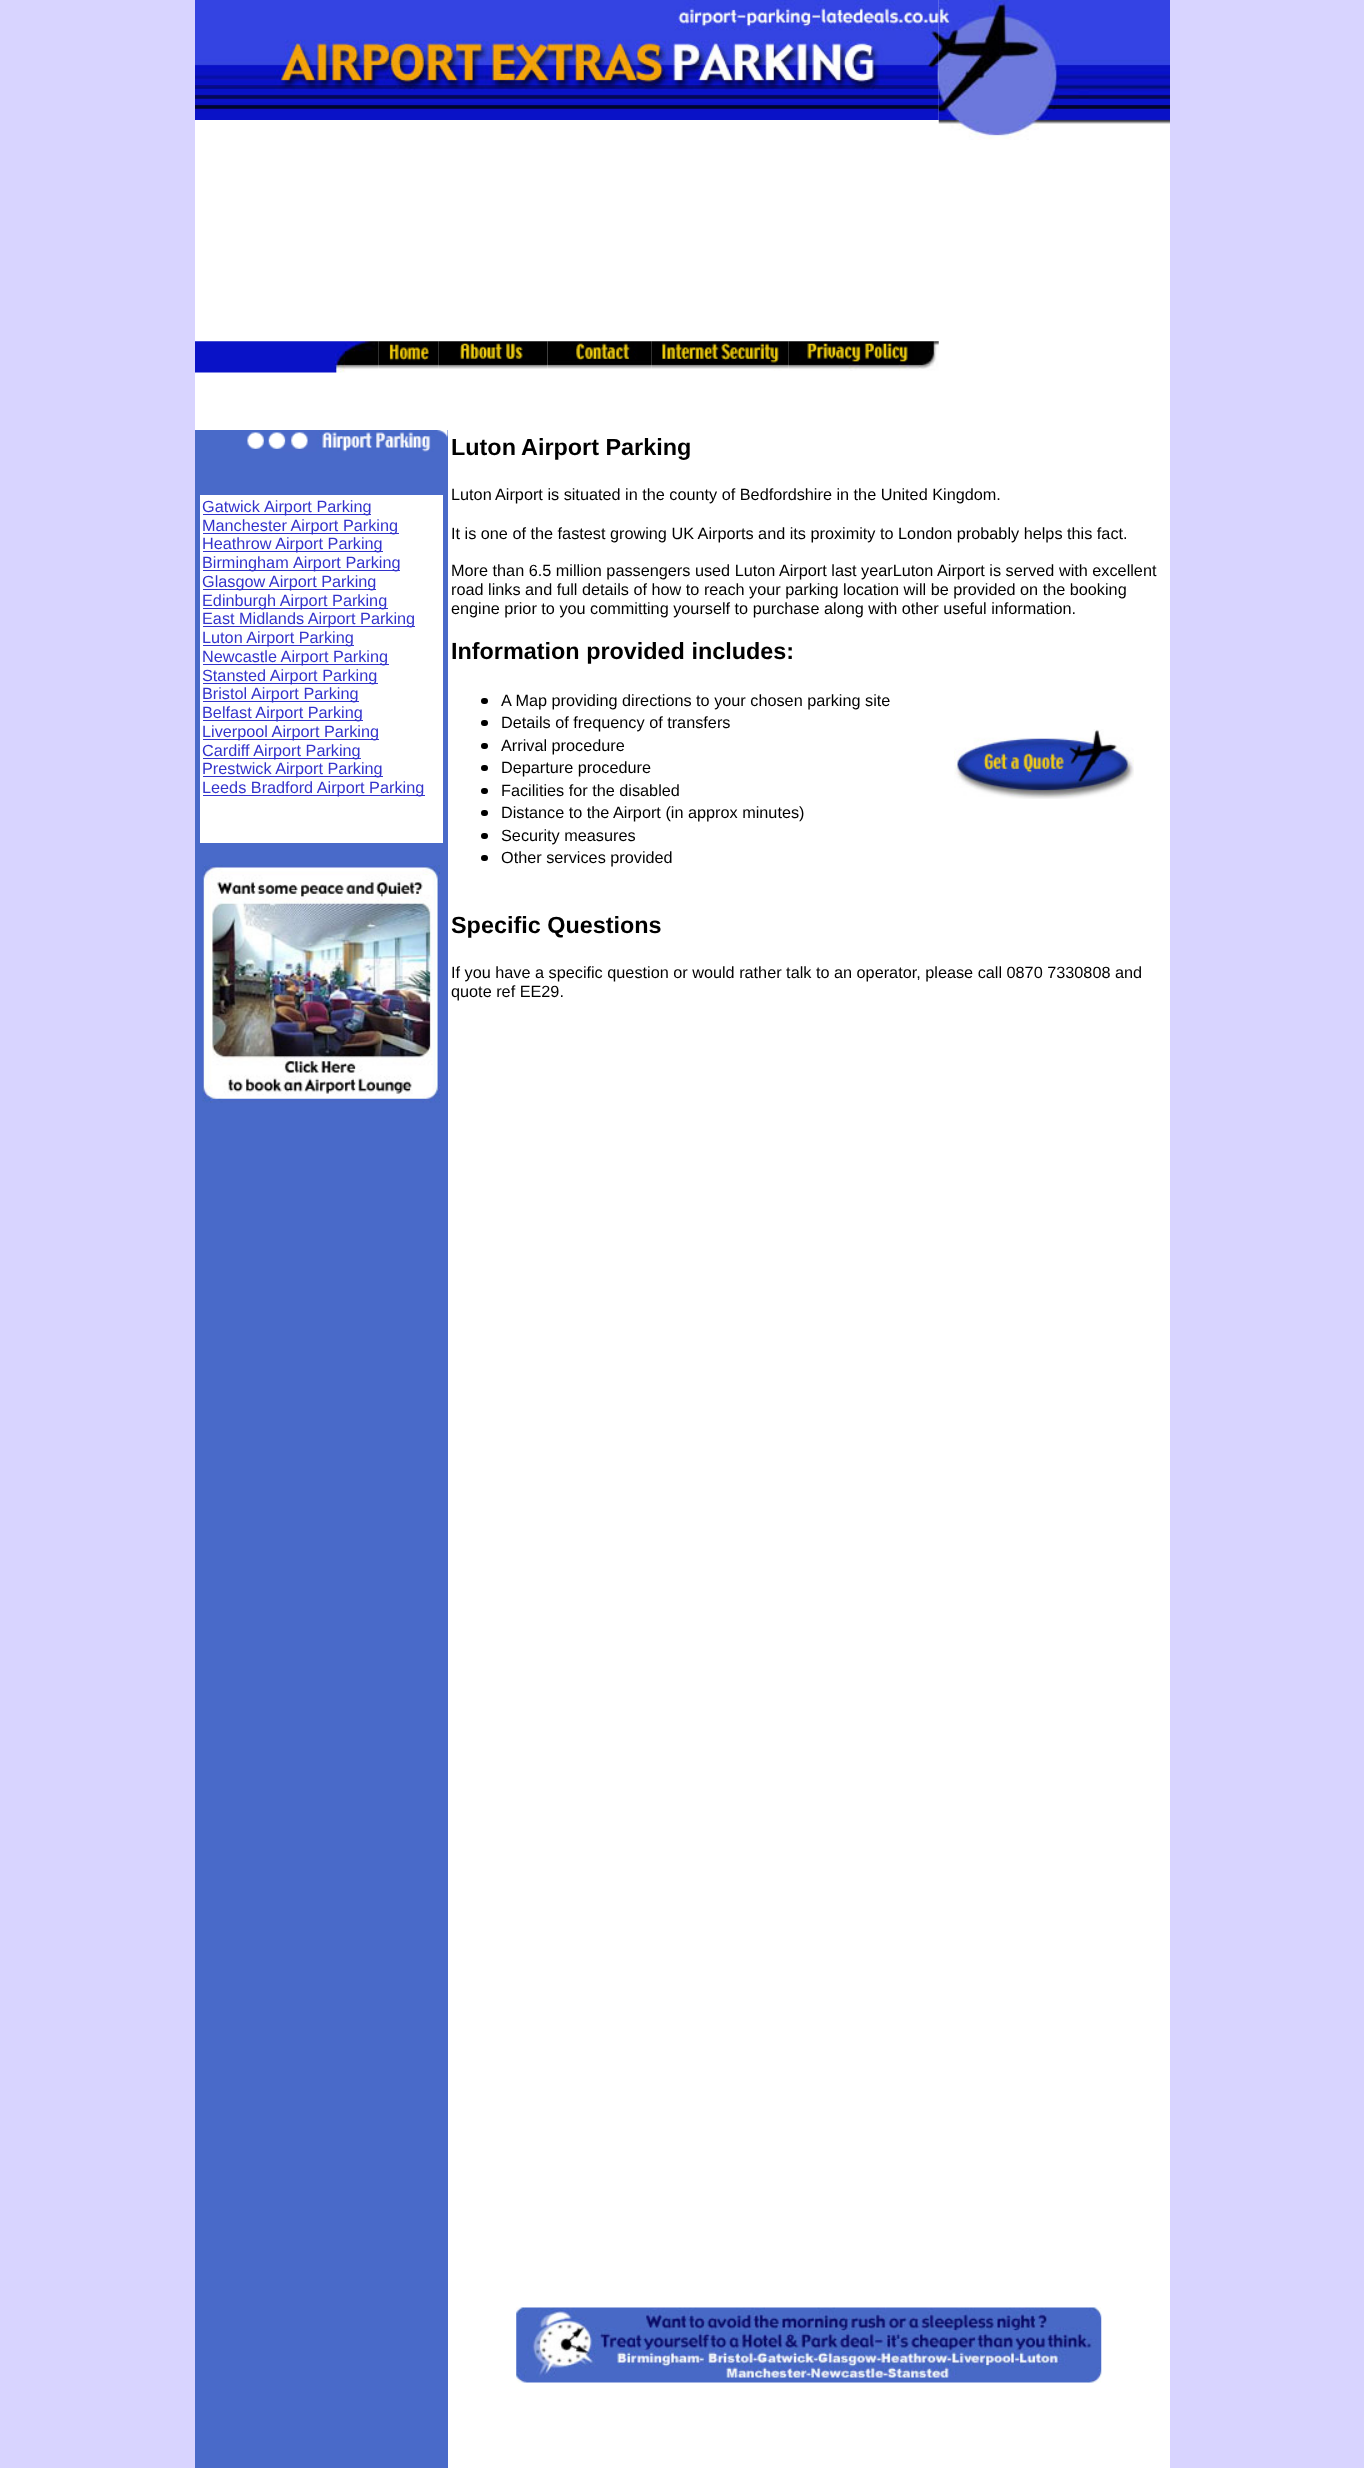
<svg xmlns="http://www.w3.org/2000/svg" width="1364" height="2468">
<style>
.a{font:16.25px Liberation Sans;fill:#33c}
.b{font:bold 23.4px Liberation Sans;fill:#000}
.c{font:16.25px Liberation Sans;fill:#000}
</style>
<rect width="100%" height="100%" fill="#d8d4ff"/>
<path fill="#fff" d="M195 0h975v2468H195z"/>
<image href="1.png" x="195" y="0" width="744" height="120"/>
<image href="2.png" x="938" y="0" width="232" height="140"/>
<image href="3.png" x="195" y="341" width="184" height="32"/>
<image href="4.png" x="378" y="341" width="61" height="28"/>
<image href="5.png" x="438" y="341" width="110" height="28"/>
<image href="6.png" x="547" y="341" width="105" height="28"/>
<image href="7.png" x="651" y="341" width="138" height="30"/>
<image href="8.png" x="788" y="341" width="151" height="30"/>
<path fill="#496ac9" d="M195 430h253v2038H195z"/>
<path fill="#fff" d="M200 495h243v348H200z"/>
<path fill="#33c" d="M203 514h168v1H203z"/>
<path fill="#33c" d="M203 533h196v1H203z"/>
<path fill="#33c" d="M203 551h180v1H203z"/>
<path fill="#33c" d="M203 570h197v1H203z"/>
<path fill="#33c" d="M203 589h173v1H203z"/>
<path fill="#33c" d="M203 608h185v1H203z"/>
<path fill="#33c" d="M203 626h212v1H203z"/>
<path fill="#33c" d="M203 645h151v1H203z"/>
<path fill="#33c" d="M203 664h186v1H203z"/>
<path fill="#33c" d="M203 683h175v1H203z"/>
<path fill="#33c" d="M203 701h156v1H203z"/>
<path fill="#33c" d="M203 720h160v1H203z"/>
<path fill="#33c" d="M203 739h176v1H203z"/>
<path fill="#33c" d="M203 758h158v1H203z"/>
<path fill="#33c" d="M203 776h180v1H203z"/>
<path fill="#33c" d="M203 795h222v1H203z"/>
<image href="9.png" x="202" y="865" width="238" height="238"/>
<image href="10.png" x="247" y="430" width="201" height="22"/>
<rect fill="#000" x="481" y="698" width="7" height="6" rx="3"/>
<rect fill="#000" x="481" y="720" width="7" height="6" rx="3"/>
<rect fill="#000" x="481" y="743" width="7" height="6" rx="3"/>
<rect fill="#000" x="481" y="765" width="7" height="6" rx="3"/>
<rect fill="#000" x="481" y="788" width="7" height="6" rx="3"/>
<rect fill="#000" x="481" y="810" width="7" height="6" rx="3"/>
<rect fill="#000" x="481" y="833" width="7" height="6" rx="3"/>
<rect fill="#000" x="481" y="855" width="7" height="6" rx="3"/>
<image href="11.png" x="954" y="729" width="180" height="70"/>
<image href="12.png" x="516" y="2307" width="586" height="76"/>
<text class="a" x="202" y="512">Gatwick</text>
<text class="a" x="264" y="512">Airport Parking</text>
<text class="a" x="202" y="531">Manchester Airport Parking</text>
<text class="a" x="202" y="549">Heathrow Airport Parking</text>
<text class="a" x="202" y="568">Birmingham</text>
<text class="a" x="293" y="568">Airport Parking</text>
<text class="a" x="202" y="587">Glasgow Airport Parking</text>
<text class="a" x="202" y="606">Edinburgh Airport Parking</text>
<text class="a" x="202" y="624">East Midlands Airport Parking</text>
<text class="a" x="202" y="643">Luton Airport Parking</text>
<text class="a" x="202" y="662">Newcastle Airport Parking</text>
<text class="a" x="202" y="681">Stansted Airport Parking</text>
<text class="a" x="202" y="699">Bristol</text>
<text class="a" x="251" y="699">Airport Parking</text>
<text class="a" x="202" y="718">Belfast Airport Parking</text>
<text class="a" x="202" y="737">Liverpool Airport Parking</text>
<text class="a" x="202" y="756">Cardiff Airport Parking</text>
<text class="a" x="202" y="774">Prestwick Airport Parking</text>
<text class="a" x="202" y="793">Leeds Bradford Airport Parking</text>
<text class="b" x="451" y="455">Luton</text>
<text class="b" x="521" y="455">Airport Parking</text>
<text class="c" x="451" y="500">Luton</text>
<text class="c" x="495" y="500">Airport is situated in the county of Bedfordshire in the United Kingdom.</text>
<text class="c" x="451" y="539">It is one of the fastest growing UK Airports and its proximity to London probably helps this fact.</text>
<text class="c" x="451" y="576">More than 6.5 million passengers used Luton Airport last yearLuton Airport is served with excellent</text>
<text class="c" x="451" y="595">road links and full details of how to reach your parking location will be provided on the booking</text>
<text class="c" x="451" y="614">engine prior to you committing yourself to purchase along with other useful information.</text>
<text class="b" x="451" y="659">Information provided includes:</text>
<text class="c" x="501" y="706">A Map providing directions to your chosen parking site</text>
<text class="c" x="501" y="728">Details of frequency of transfers</text>
<text class="c" x="501" y="751">Arrival procedure</text>
<text class="c" x="501" y="773">Departure procedure</text>
<text class="c" x="501" y="796">Facilities for the disabled</text>
<text class="c" x="501" y="818">Distance to the Airport (in approx minutes)</text>
<text class="c" x="501" y="841">Security measures</text>
<text class="c" x="501" y="863">Other services provided</text>
<text class="b" x="451" y="933">Specific Questions</text>
<text class="c" x="451" y="978">If you have a specific question or would rather talk to an operator, please call 0870 7330808 and</text>
<text class="c" x="451" y="997">quote ref EE29.</text>
</svg>
